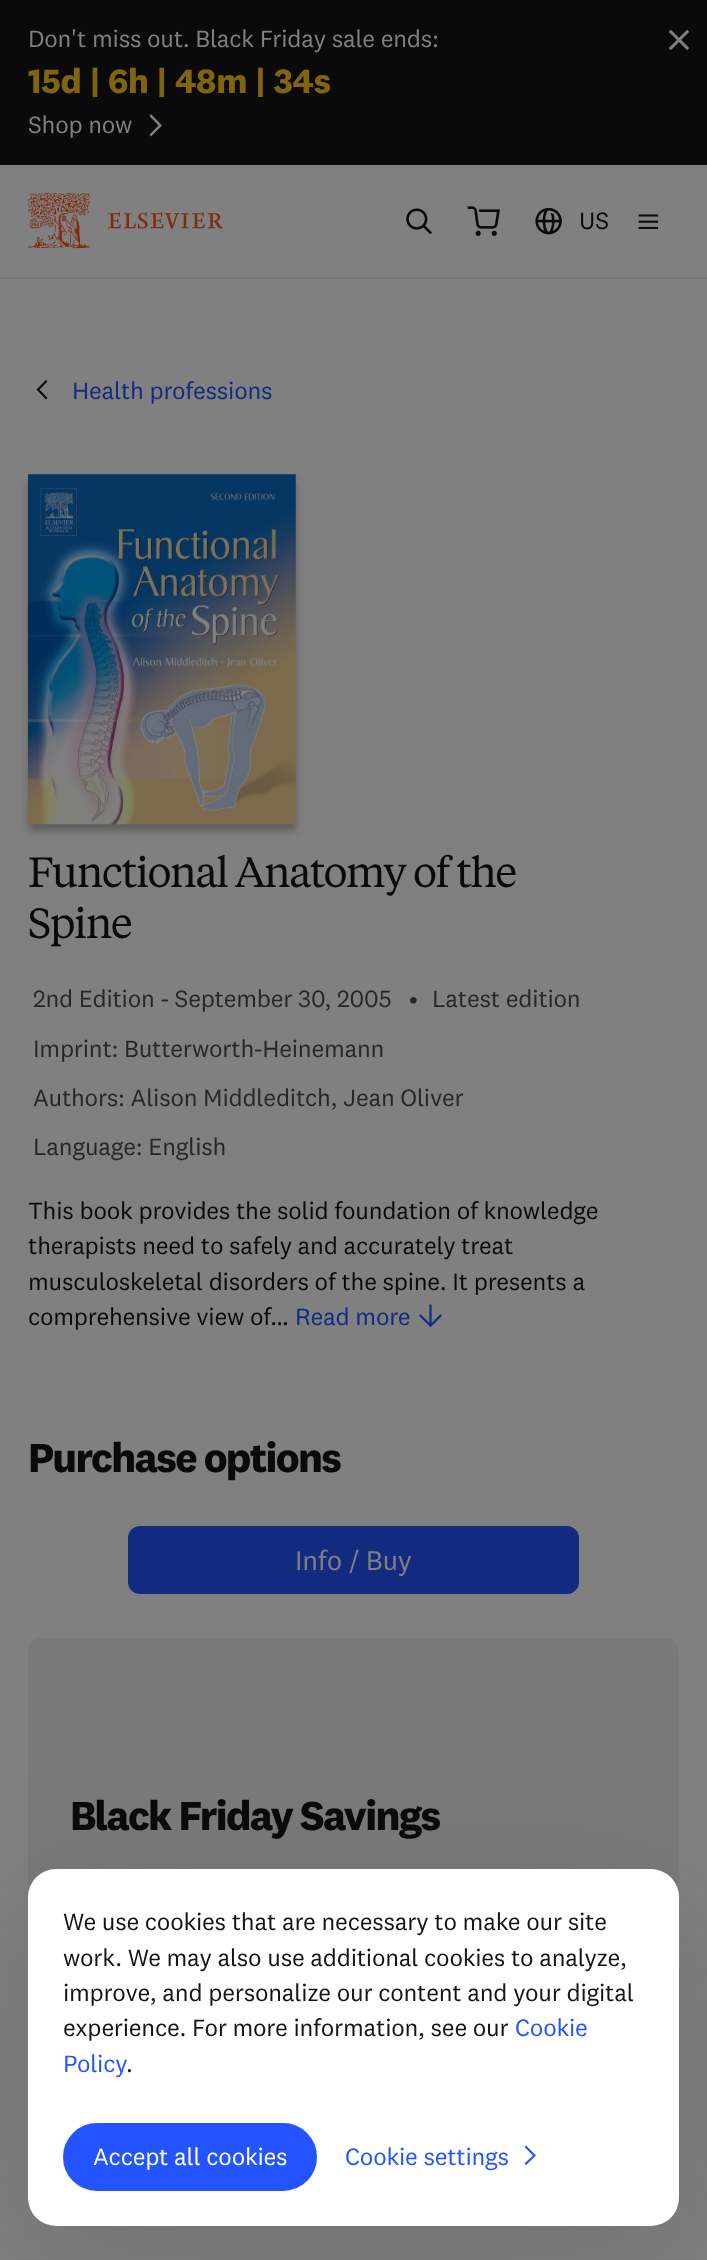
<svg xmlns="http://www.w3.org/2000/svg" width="707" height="2260">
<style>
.a{font:24.5px 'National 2';letter-spacing:-0.25px;fill:#808080}
.b{font:bold 35px 'National 2';letter-spacing:-0.25px;fill:#80640f}
.c{font:24.5px 'National 2';fill:#0a0a0b}
.d{font:24.5px 'National 2';letter-spacing:-0.25px;fill:#122a80}
.e{font:42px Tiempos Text;letter-spacing:-1.7px;fill:#0a0a0b}
.f{font:24.5px 'National 2';letter-spacing:-0.25px;fill:#272727}
.g{font:24.5px 'National 2';letter-spacing:-0.25px;fill:#0a0a0b}
.h{font:bold 42px 'National 2';letter-spacing:-1.7px;fill:#0a0a0b}
.i{font:28px 'National 2';letter-spacing:-0.25px;fill:#808080}
.j{font:24.5px 'National 2';letter-spacing:-0.25px;fill:#141415}
.k{font:24.5px 'National 2';letter-spacing:-0.25px;fill:#2354ff}
.l{font:24.5px 'National 2';letter-spacing:-0.25px;fill:#fff}
</style>
<rect width="100%" height="100%" fill="#808080"/>
<path fill="#0a0a0b" d="M0 0h707v165H0z"/>
<image href="1.png" x="668" y="29" width="22" height="22"/>
<path fill="#808080" fill-rule="evenodd" d="M149.5 134.5l9-9l-9-9.5l1.5-2l11 11.5l-11 11z"/>
<path fill="#767675" d="M0 277h707v2H0z"/>
<image href="2.png" x="28" y="193" width="195" height="56"/>
<image href="3.png" x="406" y="208" width="26" height="27"/>
<image href="4.png" x="467" y="206" width="33" height="30"/>
<image href="5.png" x="535" y="207" width="27" height="28"/>
<image href="6.png" x="638" y="214" width="21" height="15"/>
<path fill="#0a0a0b" fill-rule="evenodd" d="M36.5 389.5l9.5-9.5l1.5 1.5l-8 8l8 8.5l-1.5 1.5z"/>
<path fill="#00000040" filter="blur(3.5px)" d="M28 481h268v350H28z"/>
<image href="7.png" x="28" y="474" width="268" height="351"/>
<image href="8.png" x="419" y="1304" width="23" height="24"/>
<rect fill="#122a80" stroke="#808080" stroke-width="2" x="127" y="1525" width="453" height="70" rx="13"/>
<rect fill="#7a7a7b" x="28" y="1638" width="651" height="578" rx="14"/>
<rect fill="#33333333" filter="blur(70px)" x="28" y="1904" width="651" height="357" rx="28"/>
<rect fill="#fff" x="28" y="1869" width="651" height="357" rx="28"/>
<rect fill="#2354ff" stroke="#2354ff" stroke-width="2" x="64" y="2124" width="252" height="66" rx="33"/>
<path fill="#2354ff" fill-rule="evenodd" d="M524.5 2163.5l8.5-8l-8.5-8.5l1.5-1.5l10 10l-10 9.5z"/>
<text class="a" x="28" y="47">Don't miss out. Black Friday sale ends:</text>
<text class="b" x="28" y="93">15d | 6h | 48m | 34s</text>
<text class="a" x="28" y="133">Shop now</text>
<text class="c" x="579" y="229">US</text>
<text class="d" x="72" y="399">Health professions</text>
<text class="e" x="28" y="887">Functional Anatomy of the</text>
<text class="e" x="28" y="938">Spine</text>
<text class="f" x="33" y="1007">2nd Edition - September 30, 2005</text>
<text class="f" x="409" y="1007">•</text>
<text class="f" x="432" y="1007">Latest edition</text>
<text class="f" x="33" y="1057">Imprint: Butterworth-Heinemann</text>
<text class="f" x="33" y="1106">Authors: Alison Middleditch, Jean Oliver</text>
<text class="f" x="33" y="1155">Language: English</text>
<text class="g" x="28" y="1219">This book provides the solid foundation of knowledge</text>
<text class="g" x="28" y="1254">therapists need to safely and accurately treat</text>
<text class="g" x="28" y="1290">musculoskeletal disorders of the spine. It presents a</text>
<text class="g" x="28" y="1325">comprehensive view of…</text>
<text class="d" x="295" y="1325">Read more</text>
<text class="h" x="28" y="1472">Purchase options</text>
<text class="i" x="295" y="1570">Info / Buy</text>
<text class="h" x="70" y="1830">Black Friday Savings</text>
<text class="j" x="63" y="1930">We use cookies that are necessary to make our site</text>
<text class="j" x="63" y="1966">work. We may also use additional cookies to analyze,</text>
<text class="j" x="63" y="2001">improve, and personalize our content and your digital</text>
<text class="j" x="63" y="2036">experience. For more information, see our</text>
<text class="k" x="515" y="2036">Cookie</text>
<text class="k" x="63" y="2072">Policy</text>
<text class="j" x="126" y="2072">.</text>
<text class="l" x="93" y="2165">Accept all cookies</text>
<text class="k" x="345" y="2165">Cookie settings</text>
</svg>
